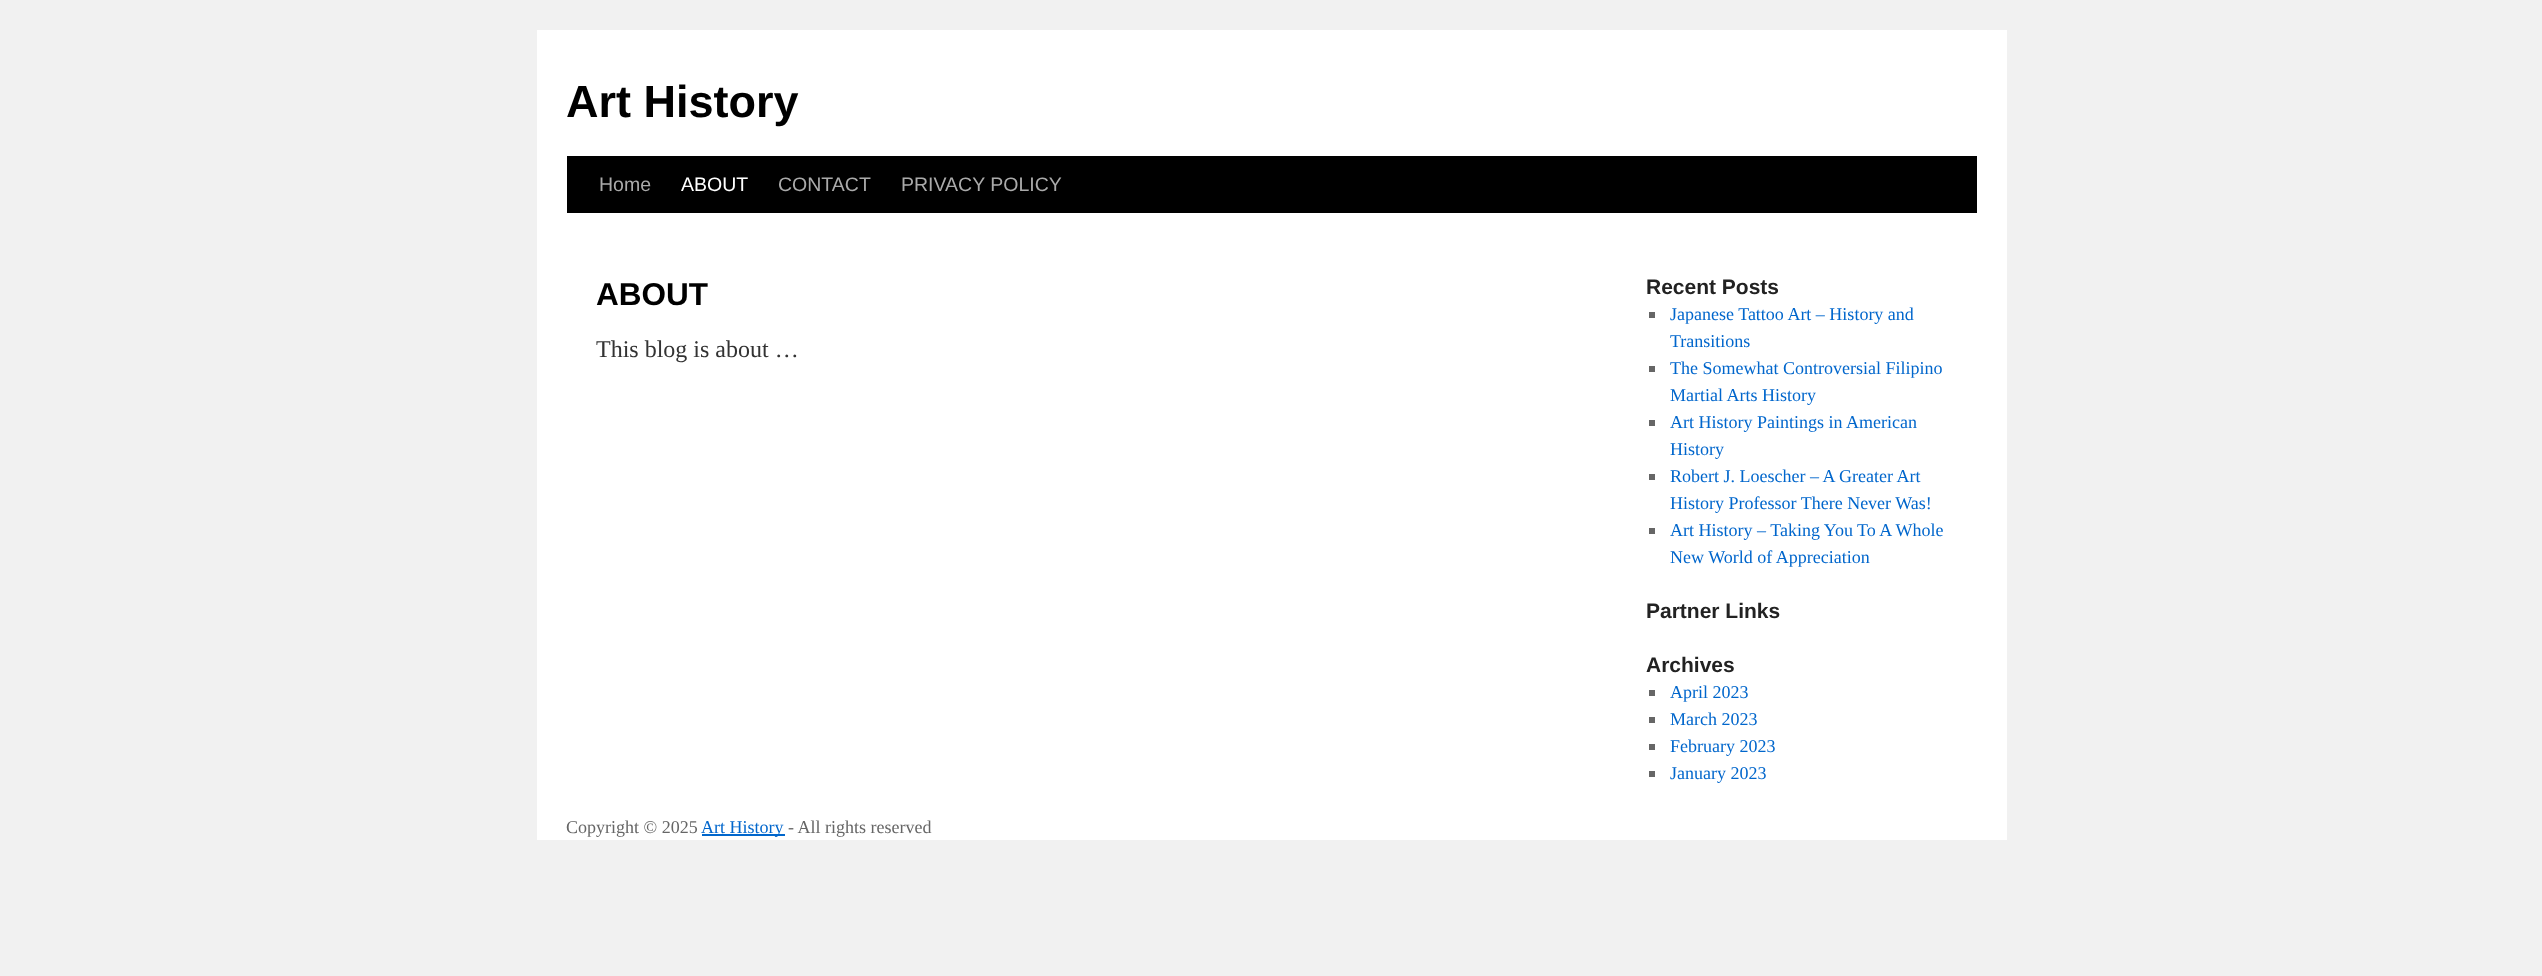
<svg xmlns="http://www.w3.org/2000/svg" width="2542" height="976">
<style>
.a{font:bold 45px Liberation Sans;fill:#000}
.b{font:19.5px Liberation Sans;fill:#aaa}
.c{font:19.5px Liberation Sans;fill:#fff}
.d{font:bold 31.5px Liberation Sans;fill:#000}
.e{font:24px Liberation Serif;fill:#333}
.f{font:bold 21px Liberation Sans;fill:#222}
.g{font:18px Liberation Serif;fill:#06c}
.h{font:18px Liberation Serif;fill:#666}
</style>
<rect width="100%" height="100%" fill="#f1f1f1"/>
<path fill="#fff" d="M537 30h1470v810H537z"/>
<path fill="#000" d="M567 156h1410v57H567z"/>
<path fill="#666" d="M1649 312h6v6H1649z"/>
<path fill="#666" d="M1649 366h6v6H1649z"/>
<path fill="#666" d="M1649 420h6v6H1649z"/>
<path fill="#666" d="M1649 474h6v6H1649z"/>
<path fill="#666" d="M1649 528h6v6H1649z"/>
<path fill="#666" d="M1649 690h6v6H1649z"/>
<path fill="#666" d="M1649 717h6v6H1649z"/>
<path fill="#666" d="M1649 744h6v6H1649z"/>
<path fill="#666" d="M1649 771h6v6H1649z"/>
<path fill="#06c" d="M702 834h83v2H702z"/>
<text class="a" x="566" y="117">Art History</text>
<text class="b" x="599" y="191">Home</text>
<text class="c" x="681" y="191">ABOUT</text>
<text class="b" x="778" y="191">CONTACT</text>
<text class="b" x="901" y="191">PRIVACY POLICY</text>
<text class="d" x="596" y="305">ABOUT</text>
<text class="e" x="596" y="357">This blog is about …</text>
<text class="f" x="1646" y="294">Recent Posts</text>
<text class="g" x="1670" y="320">Japanese Tattoo Art – History and</text>
<text class="g" x="1670" y="347">Transitions</text>
<text class="g" x="1670" y="374">The Somewhat Controversial Filipino</text>
<text class="g" x="1670" y="401">Martial Arts History</text>
<text class="g" x="1670" y="428">Art History Paintings in American</text>
<text class="g" x="1670" y="455">History</text>
<text class="g" x="1670" y="482">Robert J. Loescher – A Greater Art</text>
<text class="g" x="1670" y="509">History Professor There Never Was!</text>
<text class="g" x="1670" y="536">Art History – Taking You To A Whole</text>
<text class="g" x="1670" y="563">New World of Appreciation</text>
<text class="f" x="1646" y="618">Partner Links</text>
<text class="f" x="1646" y="672">Archives</text>
<text class="g" x="1670" y="698">April 2023</text>
<text class="g" x="1670" y="725">March 2023</text>
<text class="g" x="1670" y="752">February 2023</text>
<text class="g" x="1670" y="779">January 2023</text>
<text class="h" x="566" y="833">Copyright © 2025</text>
<text class="g" x="701" y="833">Art History</text>
<text class="h" x="788" y="833">- All rights reserved</text>
</svg>
